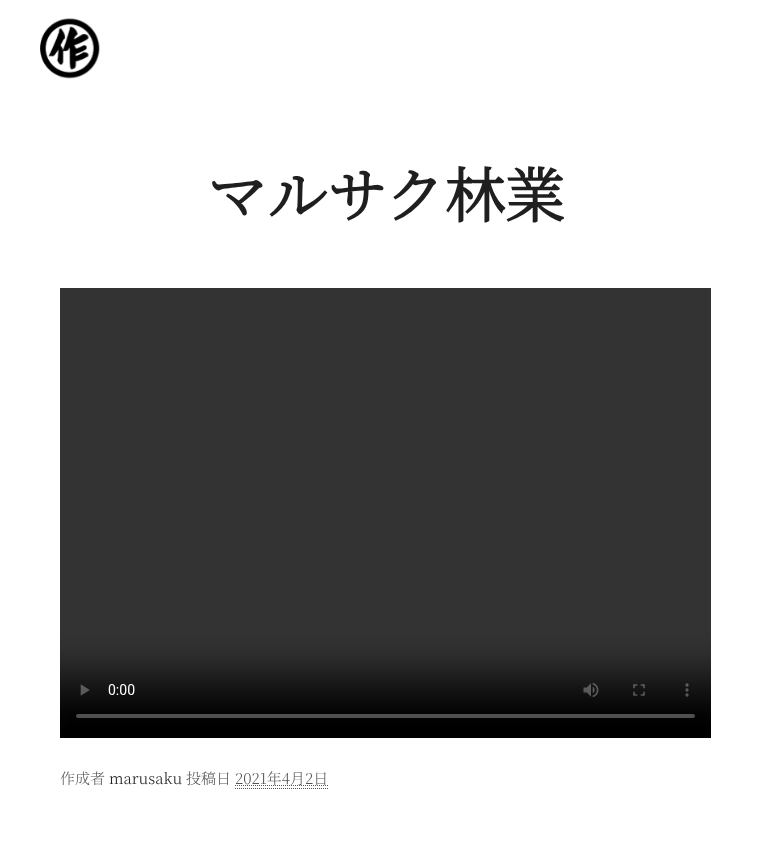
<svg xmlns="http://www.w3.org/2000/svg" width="771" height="858">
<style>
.a{font:bold 60px Noto Serif JP;fill:#1f1f1f}
.b{font:300 15px Noto Serif JP;fill:#555}
.c{font:300 15px Noto Serif JP;fill:#1f1f1f}
</style>
<rect width="100%" height="100%" fill="#fff"/>
<image href="1.png" x="40" y="18" width="60" height="61"/>
<image href="2.png" x="60" y="288" width="651" height="450"/>
<path fill="none" stroke="#555" stroke-dasharray="1 1" d="M235 788.5h93"/>
<path fill="none" stroke="#555" stroke-dasharray="1 1" d="M235 785.5h93"/>
<text class="a" x="207" y="218">マルサク林業</text>
<text class="b" x="60" y="784">作成者</text>
<text class="c" x="109" y="784">marusaku</text>
<text class="b" x="186" y="784">投稿日</text>
<text class="b" x="235" y="784">2021年4月2日</text>
</svg>
